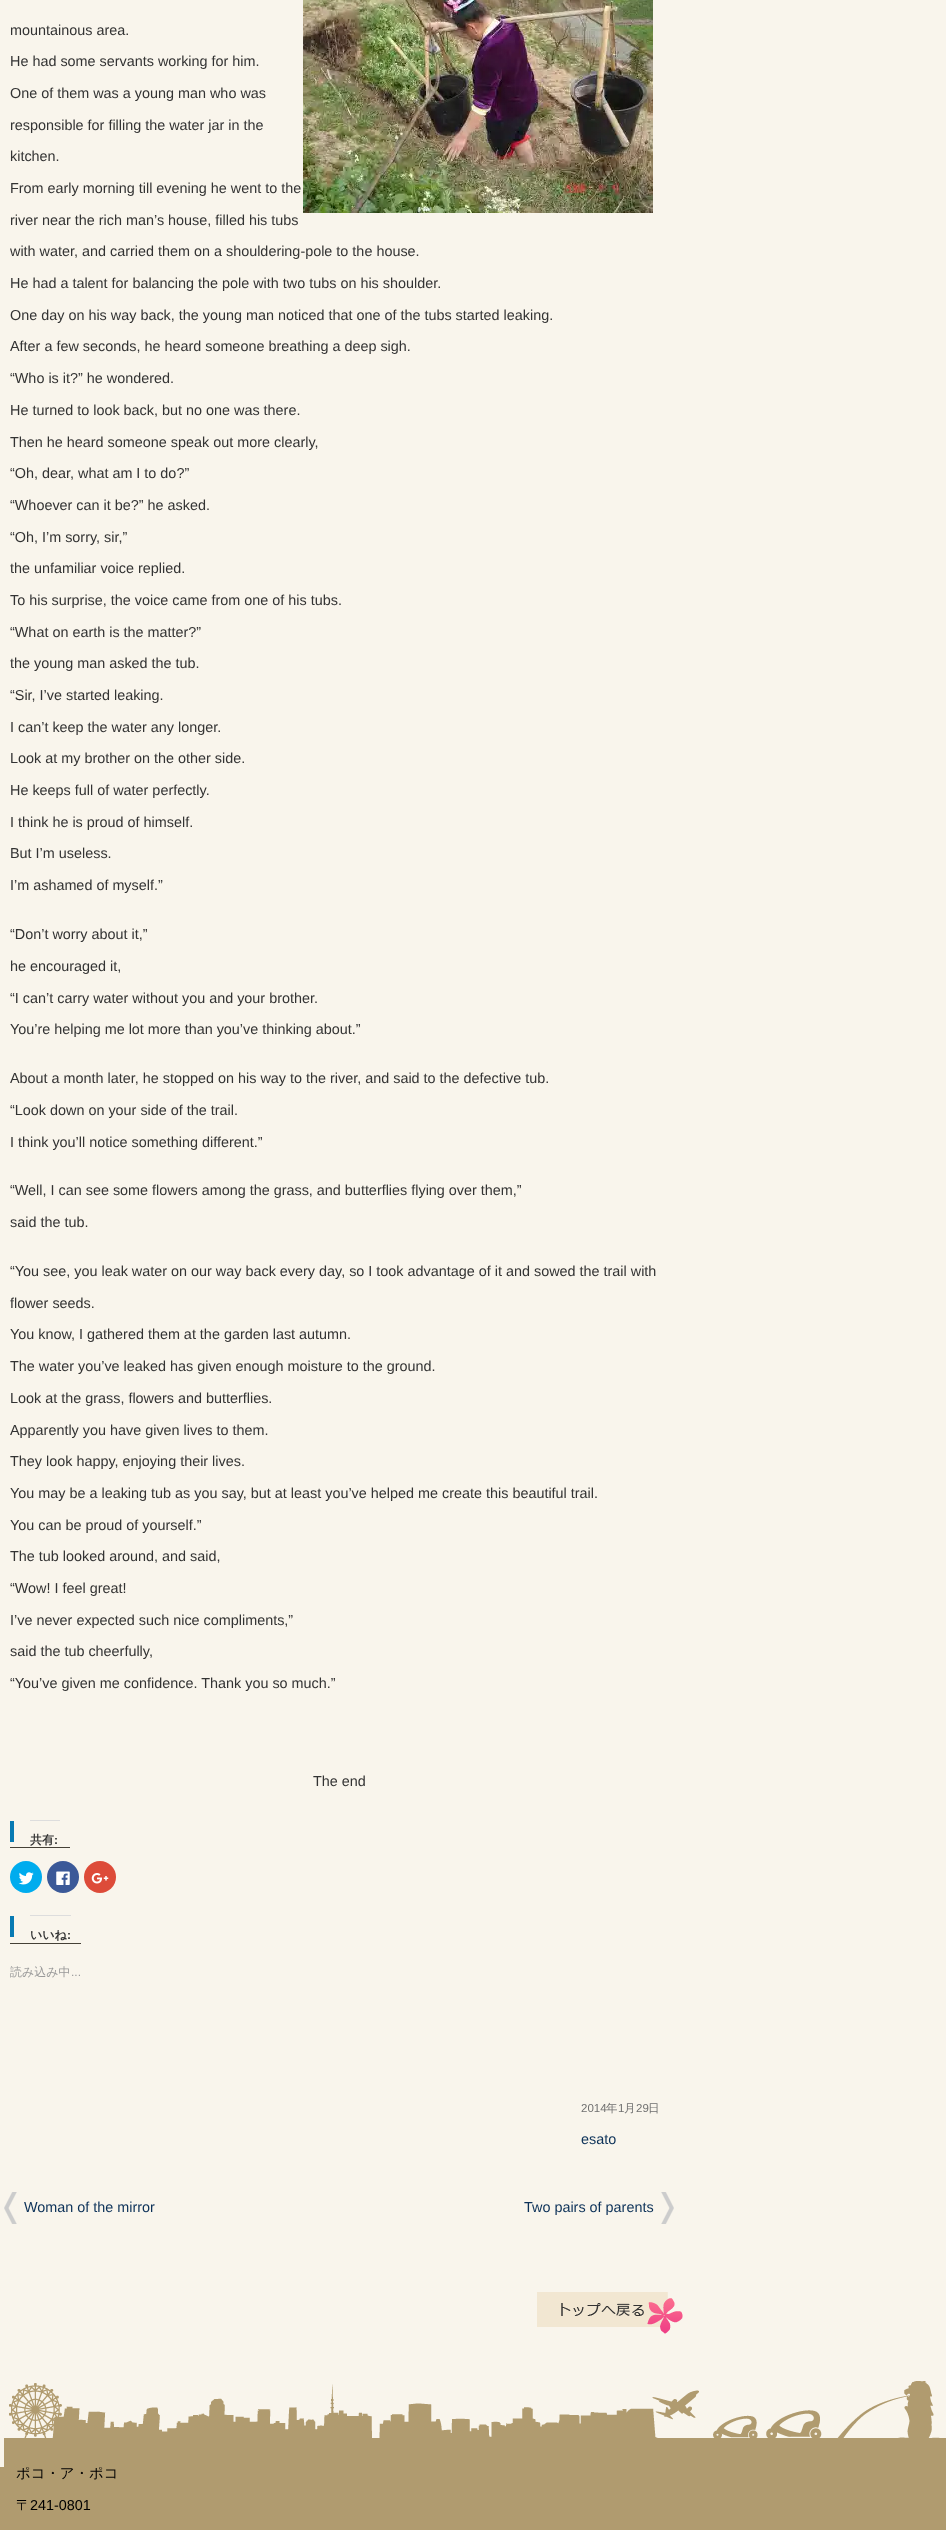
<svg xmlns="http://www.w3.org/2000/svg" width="946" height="2530">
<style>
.a{font:14.4px Liberation Sans;fill:#333}
.b{font:bold 12px WenQuanYi Zen Hei;fill:#333}
.c{font:bold 12px Liberation Sans;fill:#333}
.d{font:500 12px WenQuanYi Zen Hei;fill:#999}
.e{font:12px Liberation Sans;fill:#999}
.f{font:11.5px Liberation Sans;fill:#707070}
.g{font:500 11.5px WenQuanYi Zen Hei;fill:#707070}
.h{font:14.4px Liberation Sans;fill:#0c3158}
.i{font:500 14.4px WenQuanYi Zen Hei;fill:#000}
.j{font:14.4px Liberation Sans;fill:#000}
</style>
<rect width="100%" height="100%" fill="#b09b6f"/>
<path fill="#f9f5ec" d="M0 0h946v2467H0z"/>
<image href="1.png" x="303" y="0" width="350" height="213"/>
<path fill="#087ab3" d="M10 1821h4v21H10z"/>
<path fill="#454036" d="M10 1847h60v1H10z"/>
<path fill="#ddd" d="M30 1820h30v1H30z"/>
<circle fill="#00acee" cx="26" cy="1877" r="16"/>
<image href="2.png" x="18" y="1872" width="16" height="13"/>
<circle fill="#3b5998" cx="63" cy="1877" r="16"/>
<image href="3.png" x="56" y="1871" width="14" height="14"/>
<circle fill="#dd4b39" cx="100" cy="1877" r="16"/>
<image href="4.png" x="91" y="1873" width="18" height="11"/>
<path fill="#087ab3" d="M10 1916h4v21H10z"/>
<path fill="#454036" d="M10 1943h71v1H10z"/>
<path fill="#ddd" d="M30 1915h41v1H30z"/>
<image href="5.png" x="4" y="2192" width="13" height="32"/>
<image href="6.png" x="661" y="2192" width="13" height="32"/>
<image href="7.png" x="537" y="2292" width="146" height="42"/>
<path fill="#b09b6f" d="M4 2438h942v29H4z"/>
<image href="8.png" x="9" y="2381" width="931" height="57"/>
<text class="a" x="10" y="35">mountainous area.</text>
<text class="a" x="10" y="66">He had some servants working for him.</text>
<text class="a" x="10" y="98">One of them was a young man who was</text>
<text class="a" x="10" y="130">responsible for filling the water jar in the</text>
<text class="a" x="10" y="161">kitchen.</text>
<text class="a" x="10" y="193">From early morning till evening he went to the</text>
<text class="a" x="10" y="225">river near the rich man’s house, filled his tubs</text>
<text class="a" x="10" y="256">with water, and carried them on a shouldering-pole to the house.</text>
<text class="a" x="10" y="288">He had a talent for balancing the pole with two tubs on his shoulder.</text>
<text class="a" x="10" y="320">One day on his way back, the young man noticed that one of the tubs started leaking.</text>
<text class="a" x="10" y="351">After a few seconds, he heard someone breathing a deep sigh.</text>
<text class="a" x="10" y="383">“Who is it?” he wondered.</text>
<text class="a" x="10" y="415">He turned to look back, but no one was there.</text>
<text class="a" x="10" y="447">Then he heard someone speak out more clearly,</text>
<text class="a" x="10" y="478">“Oh, dear, what am I to do?”</text>
<text class="a" x="10" y="510">“Whoever can it be?” he asked.</text>
<text class="a" x="10" y="542">“Oh, I’m sorry, sir,”</text>
<text class="a" x="10" y="573">the unfamiliar voice replied.</text>
<text class="a" x="10" y="605">To his surprise, the voice came from one of his tubs.</text>
<text class="a" x="10" y="637">“What on earth is the matter?”</text>
<text class="a" x="10" y="668">the young man asked the tub.</text>
<text class="a" x="10" y="700">“Sir, I’ve started leaking.</text>
<text class="a" x="10" y="732">I can’t keep the water any longer.</text>
<text class="a" x="10" y="763">Look at my brother on the other side.</text>
<text class="a" x="10" y="795">He keeps full of water perfectly.</text>
<text class="a" x="10" y="827">I think he is proud of himself.</text>
<text class="a" x="10" y="858">But I’m useless.</text>
<text class="a" x="10" y="890">I’m ashamed of myself.”</text>
<text class="a" x="10" y="939">“Don’t worry about it,”</text>
<text class="a" x="10" y="971">he encouraged it,</text>
<text class="a" x="10" y="1003">“I can’t carry water without you and your brother.</text>
<text class="a" x="10" y="1034">You’re helping me lot more than you’ve thinking about.”</text>
<text class="a" x="10" y="1083">About a month later, he stopped on his way to the river, and said to the defective tub.</text>
<text class="a" x="10" y="1115">“Look down on your side of the trail.</text>
<text class="a" x="10" y="1147">I think you’ll notice something different.”</text>
<text class="a" x="10" y="1195">“Well, I can see some flowers among the grass, and butterflies flying over them,”</text>
<text class="a" x="10" y="1227">said the tub.</text>
<text class="a" x="10" y="1276">“You see, you leak water on our way back every day, so I took advantage of it and sowed the trail with</text>
<text class="a" x="10" y="1308">flower seeds.</text>
<text class="a" x="10" y="1339">You know, I gathered them at the garden last autumn.</text>
<text class="a" x="10" y="1371">The water you’ve leaked has given enough moisture to the ground.</text>
<text class="a" x="10" y="1403">Look at the grass, flowers and butterflies.</text>
<text class="a" x="10" y="1435">Apparently you have given lives to them.</text>
<text class="a" x="10" y="1466">They look happy, enjoying their lives.</text>
<text class="a" x="10" y="1498">You may be a leaking tub as you say, but at least you’ve helped me create this beautiful trail.</text>
<text class="a" x="10" y="1530">You can be proud of yourself.”</text>
<text class="a" x="10" y="1561">The tub looked around, and said,</text>
<text class="a" x="10" y="1593">“Wow! I feel great!</text>
<text class="a" x="10" y="1625">I’ve never expected such nice compliments,”</text>
<text class="a" x="10" y="1656">said the tub cheerfully,</text>
<text class="a" x="10" y="1688">“You’ve given me confidence. Thank you so much.”</text>
<text class="a" x="313" y="1786">The end</text>
<text class="b" x="30" y="1844">共有</text>
<text class="c" x="54" y="1844">:</text>
<text class="b" x="30" y="1939">いいね</text>
<text class="c" x="67" y="1939">:</text>
<text class="d" x="10" y="1976">読み込み中</text>
<text class="e" x="71" y="1976">...</text>
<text class="f" x="581" y="2112">2014</text>
<text class="g" x="606" y="2112">年</text>
<text class="f" x="618" y="2112">1</text>
<text class="g" x="624" y="2112">月</text>
<text class="f" x="636" y="2112">29</text>
<text class="g" x="648" y="2112">日</text>
<text class="h" x="581" y="2144">esato</text>
<text class="h" x="24" y="2212">Woman of the mirror</text>
<text class="h" x="524" y="2212">Two pairs of parents</text>
<text class="i" x="16" y="2478">ポコ・ア・ポコ</text>
<text class="i" x="16" y="2510">〒</text>
<text class="j" x="30" y="2510">241-0801</text>
</svg>
